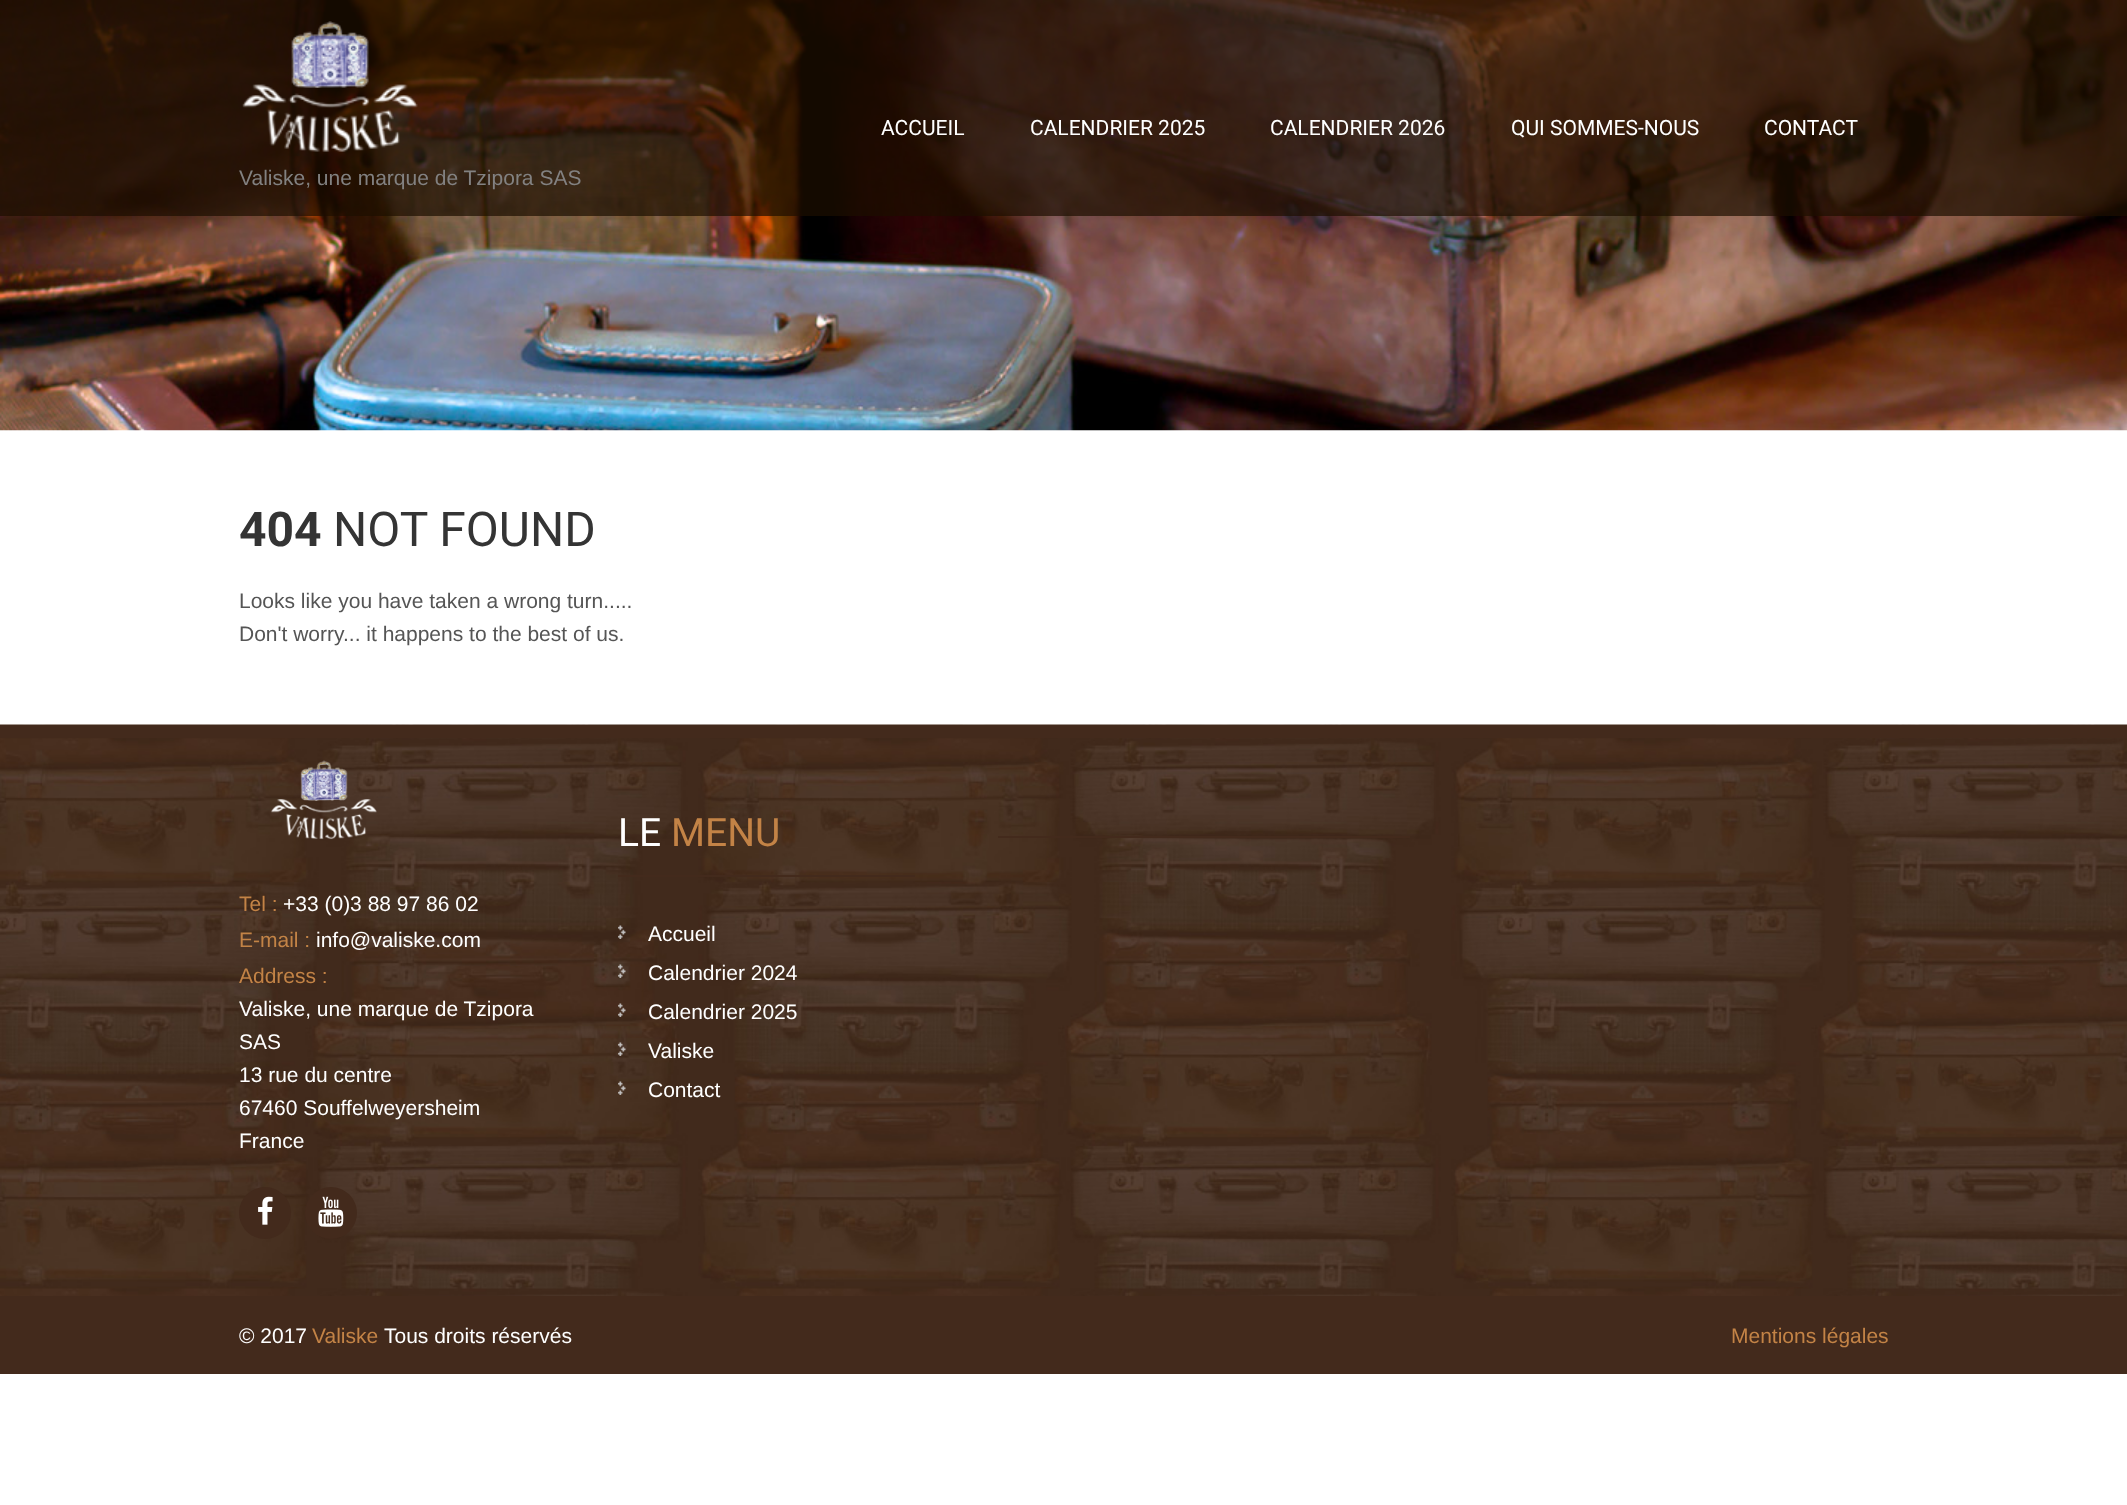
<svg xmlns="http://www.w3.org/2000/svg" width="2127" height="1505">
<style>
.a{font:21px Roboto;fill:#fff}
.b{font:21px Arimo;fill:#828181}
.c{font:bold 48px Roboto;fill:#343434}
.d{font:48px Roboto;fill:#343434}
.e{font:21px Arimo;fill:#555}
.f{font:39px Roboto;fill:#fff}
.g{font:39px Roboto;fill:#c38346}
.h{font:21px Arimo;fill:#fff}
.i{font:21px Arimo;fill:#c38346}
</style>
<rect width="100%" height="100%" fill="#fff"/>
<image href="1.png" x="0" y="0" width="2127" height="431"/>
<path fill="#1d0e00b3" d="M0 0h2127v216H0z"/>
<image href="2.png" x="242" y="21" width="176" height="131"/>
<image href="3.png" x="0" y="724" width="2127" height="572"/>
<path fill="#432a1c" d="M0 725h2127v13H0z"/>
<path fill="#432a1c" d="M618 875h297v2H618z"/>
<image href="4.png" x="618" y="925" width="8" height="14"/>
<image href="5.png" x="618" y="964" width="8" height="14"/>
<image href="6.png" x="618" y="1003" width="8" height="14"/>
<image href="7.png" x="618" y="1042" width="8" height="14"/>
<image href="8.png" x="618" y="1081" width="8" height="14"/>
<path fill="#432a1c" d="M998 836h412v2H998z"/>
<image href="9.png" x="271" y="760" width="106" height="80"/>
<circle fill="#432a1c" cx="265" cy="1213" r="26"/>
<image href="10.png" x="258" y="1196" width="15" height="29"/>
<circle fill="#432a1c" cx="331" cy="1213" r="26"/>
<image href="11.png" x="318" y="1196" width="26" height="31"/>
<path fill="#432a1c" d="M0 1296h2127v78H0z"/>
<text class="a" x="881" y="135">ACCUEIL</text>
<text class="a" x="1030" y="135">CALENDRIER 2025</text>
<text class="a" x="1270" y="135">CALENDRIER 2026</text>
<text class="a" x="1511" y="135">QUI SOMMES-NOUS</text>
<text class="a" x="1764" y="135">CONTACT</text>
<text class="b" x="239" y="185">Valiske, une marque de Tzipora SAS</text>
<text class="c" x="239" y="546">404</text>
<text class="d" x="333" y="546">NOT FOUND</text>
<text class="e" x="239" y="608">Looks like you have taken a wrong turn.....</text>
<text class="e" x="239" y="641">Don't worry... it happens to the best of us.</text>
<text class="f" x="618" y="846">LE</text>
<text class="g" x="671" y="846">MENU</text>
<text class="h" x="648" y="941">Accueil</text>
<text class="h" x="648" y="980">Calendrier 2024</text>
<text class="h" x="648" y="1019">Calendrier 2025</text>
<text class="h" x="648" y="1058">Valiske</text>
<text class="h" x="648" y="1097">Contact</text>
<text class="i" x="239" y="911">Tel :</text>
<text class="h" x="283" y="911">+33 (0)3 88 97 86 02</text>
<text class="i" x="239" y="947">E-mail :</text>
<text class="h" x="316" y="947">info@valiske.com</text>
<text class="i" x="239" y="983">Address :</text>
<text class="h" x="239" y="1016">Valiske, une marque de Tzipora</text>
<text class="h" x="239" y="1049">SAS</text>
<text class="h" x="239" y="1082">13 rue du centre</text>
<text class="h" x="239" y="1115">67460 Souffelweyersheim</text>
<text class="h" x="239" y="1148">France</text>
<text class="h" x="239" y="1343">© 2017</text>
<text class="i" x="312" y="1343">Valiske</text>
<text class="h" x="384" y="1343">Tous droits réservés</text>
<text class="i" x="1731" y="1343">Mentions légales</text>
</svg>
